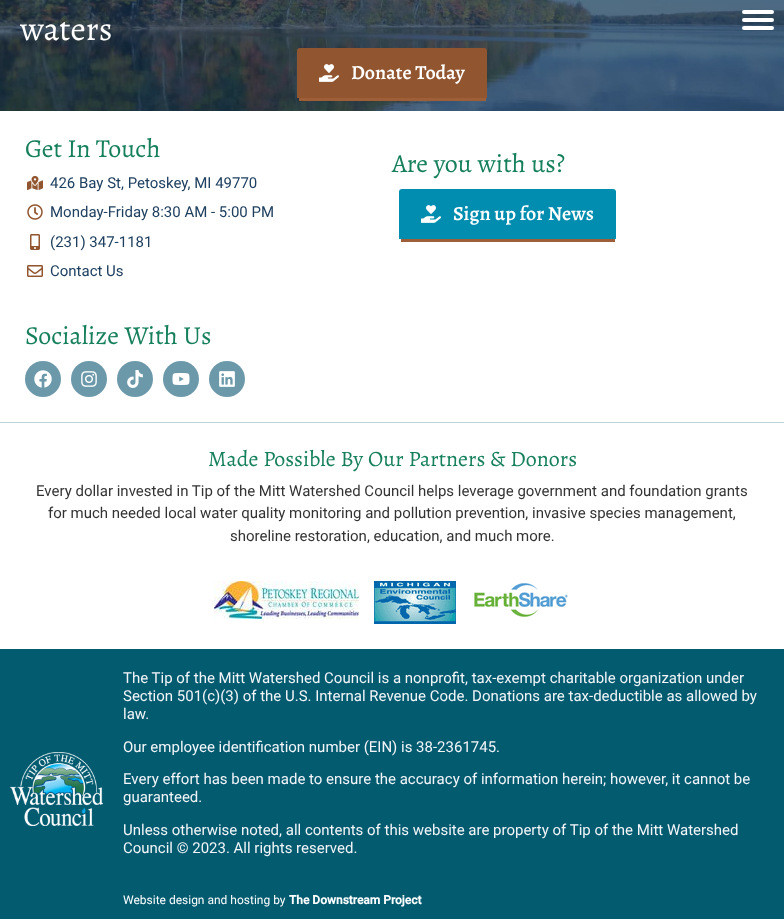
<svg xmlns="http://www.w3.org/2000/svg" width="784" height="919">
<style>
.a{font:34px Alegreya;fill:#fff}
.b{font:600 20px Alegreya;fill:#fff}
.c{font:26px Alegreya;fill:#16805c}
.d{font:15px Roboto;fill:#204060}
.e{font:22px Alegreya;fill:#16805c}
.f{font:15px Roboto;fill:#333}
.g{font:15px Roboto;fill:#f3f5f9}
.h{font:12px Roboto;fill:#fff}
.i{font:bold 12px Roboto;fill:#fff}
</style>
<rect width="100%" height="100%" fill="#fff"/>
<image href="1.png" x="0" y="0" width="784" height="111"/>
<path fill="#915530" d="M300 48h184c2 0 3 1 3 3v47h-190v-47c0-2 1-3 3-3z"/>
<path fill="#9e5e37" d="M299 98h187v3H299z"/>
<image href="2.png" x="319" y="64" width="20" height="18"/>
<image href="3.png" x="27" y="175" width="16" height="16"/>
<image href="4.png" x="27" y="204" width="16" height="16"/>
<image href="5.png" x="30" y="234" width="10" height="16"/>
<image href="6.png" x="27" y="265" width="16" height="12"/>
<circle fill="#6c99aa" cx="43" cy="379" r="18"/>
<image href="7.png" x="34" y="370" width="18" height="18"/>
<circle fill="#6c99aa" cx="89" cy="379" r="18"/>
<image href="8.png" x="81" y="371" width="16" height="16"/>
<circle fill="#6c99aa" cx="135" cy="379" r="18"/>
<image href="9.png" x="127" y="370" width="16" height="18"/>
<circle fill="#6c99aa" cx="181" cy="379" r="18"/>
<image href="10.png" x="172" y="373" width="18" height="12"/>
<circle fill="#6c99aa" cx="227" cy="379" r="18"/>
<image href="11.png" x="219" y="371" width="16" height="16"/>
<path fill="#008daf" d="M402 189h211c2 0 3 1 3 3v47h-217v-47c0-2 1-3 3-3z"/>
<path fill="#9e5e37" d="M401 239h214v3H401z"/>
<image href="12.png" x="421" y="205" width="20" height="18"/>
<path fill="#c0d1d7" d="M0 422h784v1H0z"/>
<image href="13.png" x="214" y="581" width="145" height="38"/>
<image href="14.png" x="374" y="581" width="82" height="43"/>
<image href="15.png" x="472" y="583" width="96" height="34"/>
<path fill="#035b70" d="M0 649h784v270H0z"/>
<image href="16.png" x="10" y="752" width="93" height="74"/>
<rect fill="#fff" x="742" y="10" width="32" height="4" rx="2"/>
<rect fill="#fff" x="742" y="18" width="32" height="4" rx="2"/>
<rect fill="#fff" x="742" y="26" width="32" height="4" rx="2"/>
<text class="a" x="20" y="40">waters</text>
<text class="b" x="351" y="79">Donate Today</text>
<text class="c" x="25" y="157">Get In Touch</text>
<text class="d" x="50" y="188">426 Bay St, Petoskey, MI 49770</text>
<text class="d" x="50" y="217">Monday-Friday 8:30 AM - 5:00 PM</text>
<text class="d" x="50" y="247">(231) 347-1181</text>
<text class="d" x="50" y="276">Contact Us</text>
<text class="c" x="25" y="344" word-spacing="0.5">Socialize With Us</text>
<text class="c" x="392" y="172" word-spacing="0.5">Are you with us?</text>
<text class="b" x="453" y="220">Sign up for News</text>
<text class="e" x="208" y="466" word-spacing="0.5">Made Possible By Our Partners &amp; Donors</text>
<text class="f" x="36" y="496">Every dollar invested in Tip of the Mitt Watershed Council helps leverage government and foundation grants</text>
<text class="f" x="48" y="518">for much needed local water quality monitoring and pollution prevention, invasive species management,</text>
<text class="f" x="230" y="541">shoreline restoration, education, and much more.</text>
<text class="g" x="123" y="683">The Tip of the Mitt Watershed Council is a nonprofit, tax-exempt charitable organization under</text>
<text class="g" x="123" y="701">Section 501(c)(3) of the U.S. Internal Revenue Code. Donations are tax-deductible as allowed by</text>
<text class="g" x="123" y="719">law.</text>
<text class="g" x="123" y="752">Our employee identification number (EIN) is 38-2361745.</text>
<text class="g" x="123" y="784">Every effort has been made to ensure the accuracy of information herein; however, it cannot be</text>
<text class="g" x="123" y="802">guaranteed.</text>
<text class="g" x="123" y="835">Unless otherwise noted, all contents of this website are property of Tip of the Mitt Watershed</text>
<text class="g" x="123" y="853">Council © 2023. All rights reserved.</text>
<text class="h" x="123" y="904">Website design and hosting by</text>
<text class="i" x="289" y="904">The Downstream Project</text>
</svg>
